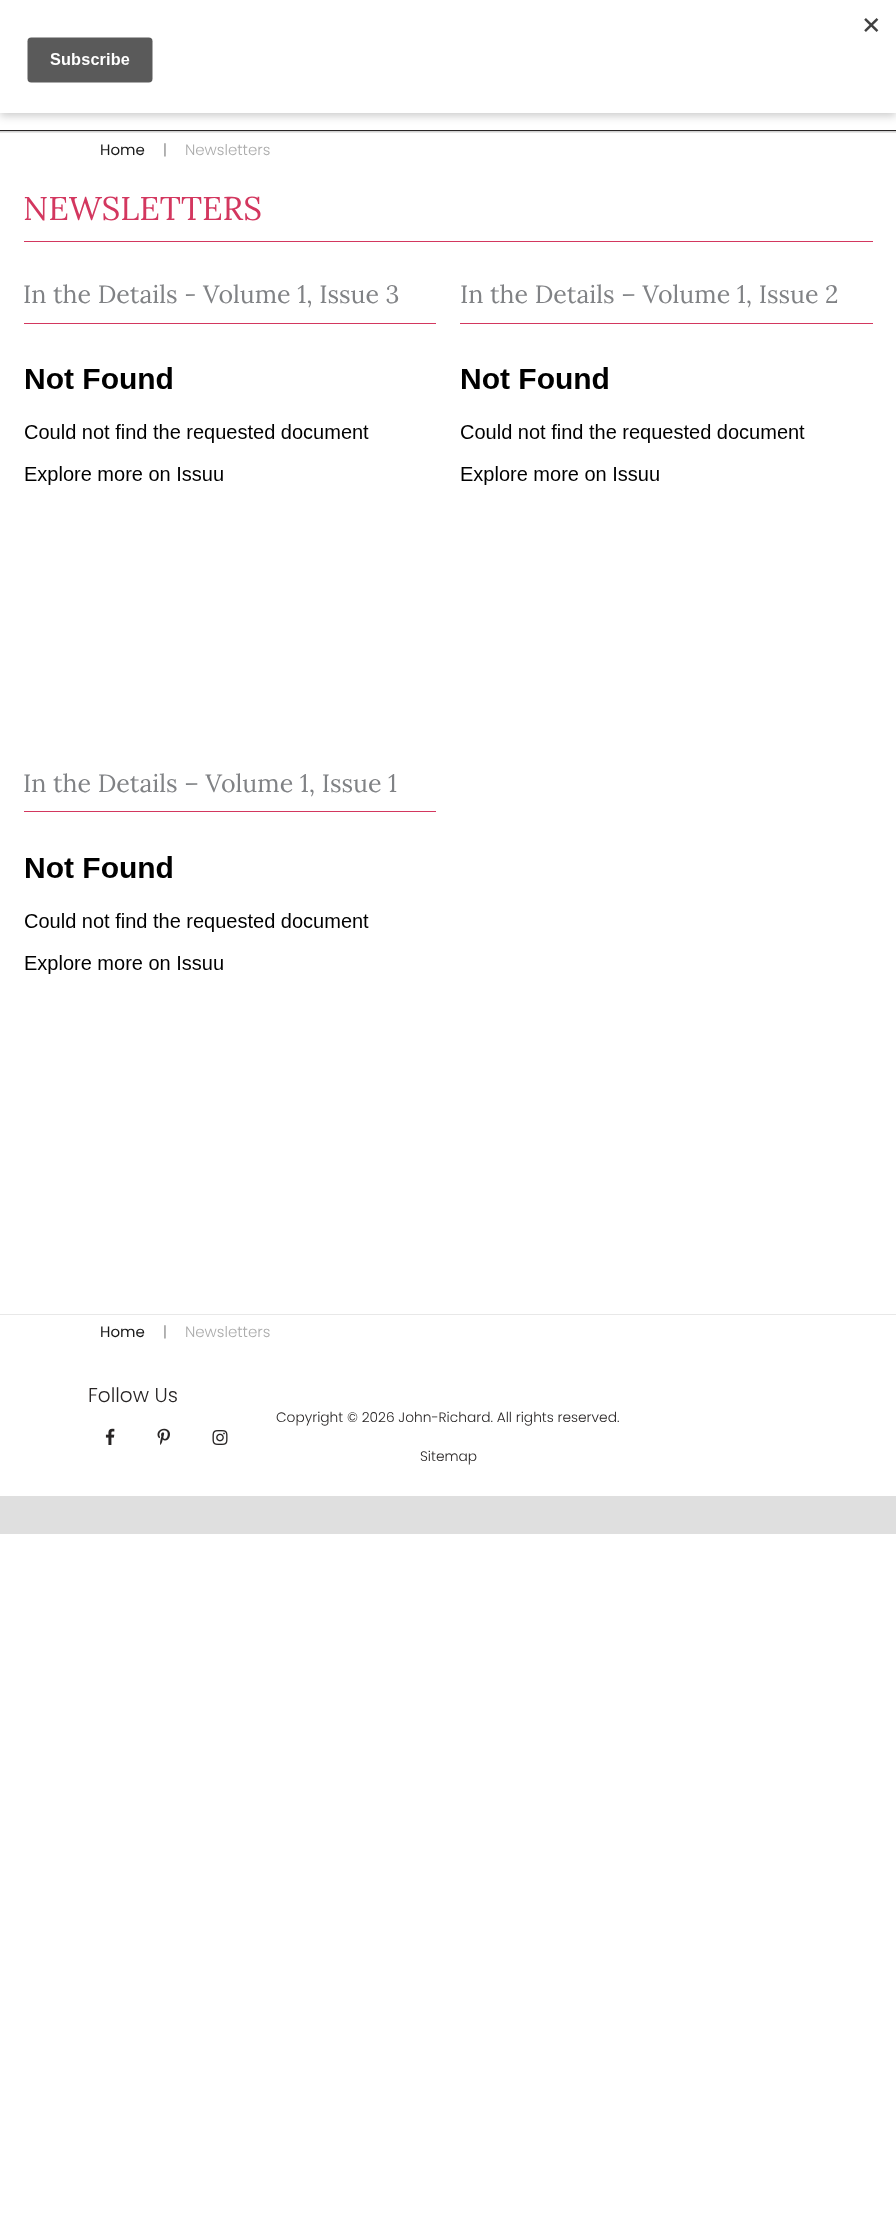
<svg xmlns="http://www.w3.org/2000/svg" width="896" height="2214">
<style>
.a{font:15px Poppins;fill:#181818}
.b{font:300 15px Poppins;fill:#747474}
.c{font:300 15px Poppins;fill:#acacac}
.d{font:33px Lora;fill:#d3375f}
.e{font:25px Lora;fill:#808285}
.f{font:300 20px Poppins;fill:#282525}
.g{font:300 13.75px Poppins;fill:#282525}
</style>
<rect width="100%" height="100%" fill="#fff"/>
<path fill="#e6e6e6" d="M0 132h896v1H0z"/>
<path fill="#00000033" filter="blur(4px)" d="M0 4h896v112H0z"/>
<path fill="#fff" d="M0 0h896v113H0z"/>
<image href="1.png" x="27" y="18" width="852" height="65"/>
<path fill="#282525" d="M0 130h896v1H0z"/>
<path fill="#d1d1d1" d="M0 131h896v1H0z"/>
<path fill="#d3375f" d="M24 241h849v1H24z"/>
<path fill="#d3375f" d="M24 323h412v1H24z"/>
<image href="2.png" x="25" y="367" width="344" height="118"/>
<path fill="#d3375f" d="M460 323h413v1H460z"/>
<image href="2.png" x="461" y="367" width="344" height="118"/>
<path fill="#d3375f" d="M24 811h412v1H24z"/>
<image href="2.png" x="25" y="856" width="344" height="118"/>
<path fill="#e8e8e8" d="M0 1314h896v1H0z"/>
<image href="3.png" x="105" y="1428" width="10" height="17"/>
<image href="4.png" x="157" y="1428" width="13" height="17"/>
<image href="5.png" x="212" y="1430" width="16" height="15"/>
<path fill="#dfdfdf" d="M0 1496h896v38H0z"/>
<text class="a" x="100" y="155">Home</text>
<text class="b" x="163" y="155">|</text>
<text class="c" x="185" y="155">Newsletters</text>
<text class="d" x="23" y="220">NEWSLETTERS</text>
<text class="e" x="23" y="303">In the Details - Volume 1, Issue 3</text>
<text class="e" x="460" y="303">In the Details – Volume 1, Issue 2</text>
<text class="e" x="23" y="792">In the Details – Volume 1, Issue 1</text>
<text class="a" x="100" y="1337">Home</text>
<text class="b" x="163" y="1337">|</text>
<text class="c" x="185" y="1337">Newsletters</text>
<text class="f" x="88" y="1402">Follow Us</text>
<text class="g" x="276" y="1422">Copyright © 2026 John-Richard. All rights reserved.</text>
<text class="g" x="420" y="1461">Sitemap</text>
</svg>
